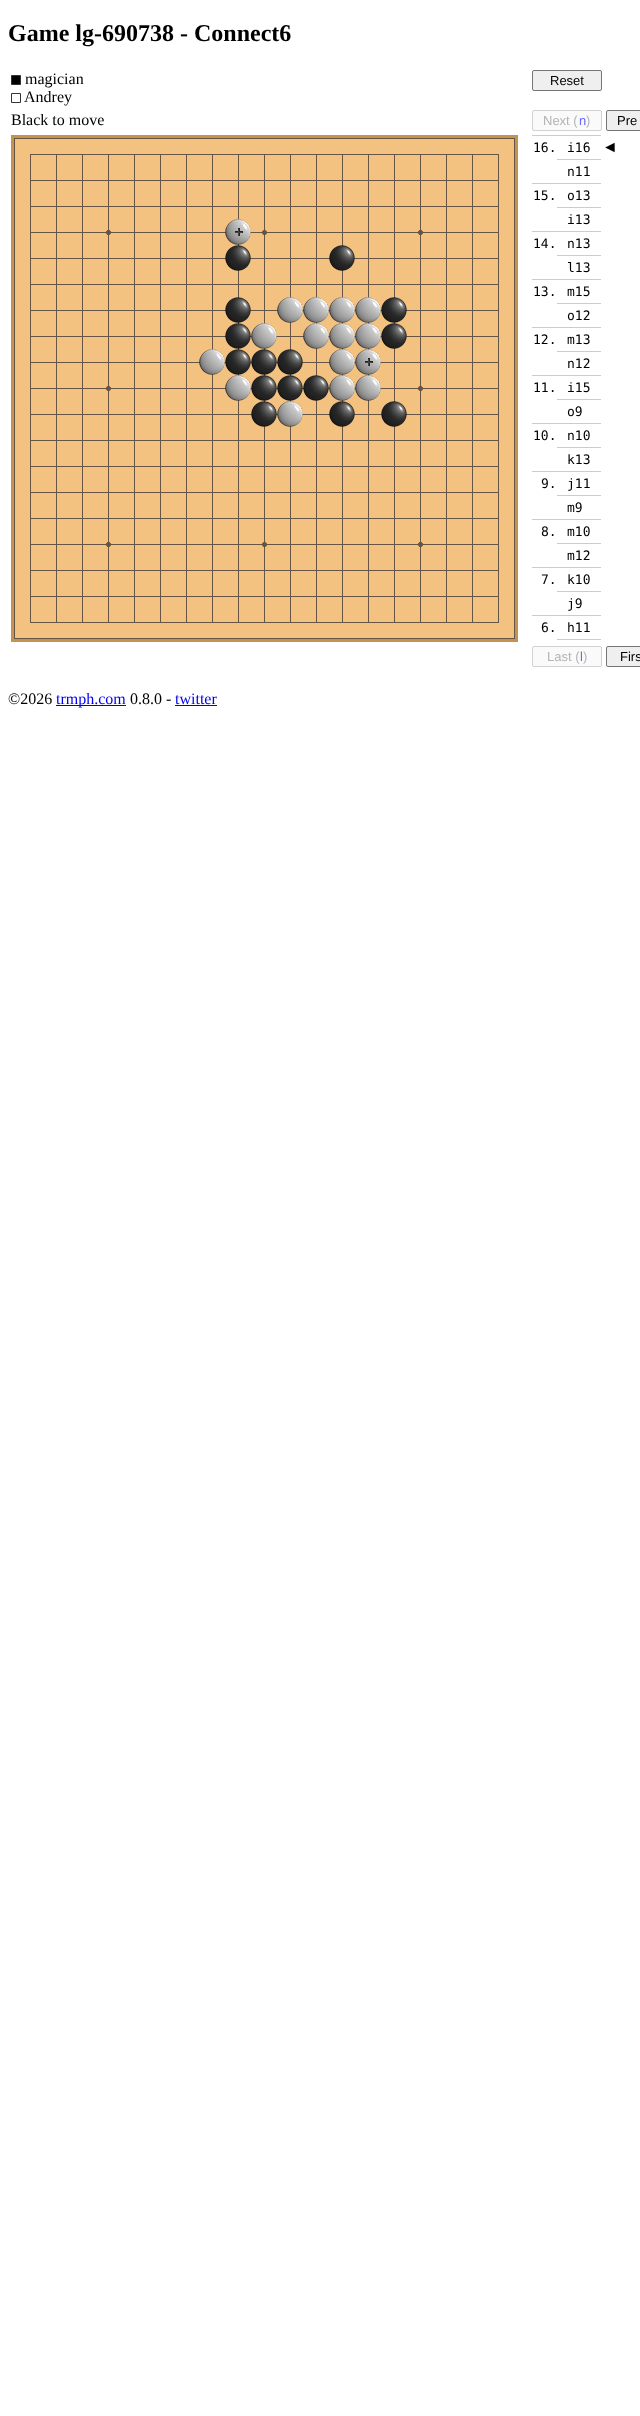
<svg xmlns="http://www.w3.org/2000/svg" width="640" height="2416">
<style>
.a{font:bold 24px Liberation Serif;fill:#000}
.b{font:16px Liberation Serif;fill:#000}
.c{font:13px Liberation Sans;fill:#000}
.d{font:13px Liberation Sans;fill:#b4b4b4}
.e{font:13px Liberation Sans;fill:#66f}
.f{font:13px DejaVu Sans Mono;fill:#000}
.g{font:16px Liberation Serif;fill:#00e}
</style>
<rect width="100%" height="100%" fill="#fff"/>
<path fill="#000" stroke="#333" d="M11.5 75.5h9v9H11.5z"/>
<path fill="none" stroke="#333" d="M11.5 93.5h9v9H11.5z"/>
<rect fill="#efefef" stroke="#767676" x="532.5" y="70.5" width="69" height="20" rx="1.5"/>
<rect fill="#fafafa" stroke="#d2d2d2" x="532.5" y="110.5" width="69" height="20" rx="1.5"/>
<rect fill="#efefef" stroke="#767676" x="606.5" y="110.5" width="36" height="20" rx="1.5"/>
<image href="1.png" x="11" y="135" width="507" height="507"/>
<image href="2.png" x="225" y="219" width="26" height="26"/>
<image href="3.png" x="235" y="228" width="8" height="8"/>
<image href="4.png" x="225" y="245" width="26" height="26"/>
<image href="4.png" x="329" y="245" width="26" height="26"/>
<image href="4.png" x="225" y="297" width="26" height="26"/>
<image href="2.png" x="277" y="297" width="26" height="26"/>
<image href="2.png" x="303" y="297" width="26" height="26"/>
<image href="2.png" x="329" y="297" width="26" height="26"/>
<image href="2.png" x="355" y="297" width="26" height="26"/>
<image href="4.png" x="381" y="297" width="26" height="26"/>
<image href="4.png" x="225" y="323" width="26" height="26"/>
<image href="2.png" x="251" y="323" width="26" height="26"/>
<image href="2.png" x="303" y="323" width="26" height="26"/>
<image href="2.png" x="329" y="323" width="26" height="26"/>
<image href="2.png" x="355" y="323" width="26" height="26"/>
<image href="4.png" x="381" y="323" width="26" height="26"/>
<image href="2.png" x="199" y="349" width="26" height="26"/>
<image href="4.png" x="225" y="349" width="26" height="26"/>
<image href="4.png" x="251" y="349" width="26" height="26"/>
<image href="4.png" x="277" y="349" width="26" height="26"/>
<image href="2.png" x="329" y="349" width="26" height="26"/>
<image href="2.png" x="355" y="349" width="26" height="26"/>
<image href="3.png" x="365" y="358" width="8" height="8"/>
<image href="2.png" x="225" y="375" width="26" height="26"/>
<image href="4.png" x="251" y="375" width="26" height="26"/>
<image href="4.png" x="277" y="375" width="26" height="26"/>
<image href="4.png" x="303" y="375" width="26" height="26"/>
<image href="2.png" x="329" y="375" width="26" height="26"/>
<image href="2.png" x="355" y="375" width="26" height="26"/>
<image href="4.png" x="251" y="401" width="26" height="26"/>
<image href="2.png" x="277" y="401" width="26" height="26"/>
<image href="4.png" x="329" y="401" width="26" height="26"/>
<image href="4.png" x="381" y="401" width="26" height="26"/>
<path fill="#ccc" d="M532 135h69v1H532z"/>
<path fill="#ccc" d="M557 159h44v1H557z"/>
<path fill="#ccc" d="M532 183h69v1H532z"/>
<path fill="#ccc" d="M557 207h44v1H557z"/>
<path fill="#ccc" d="M532 231h69v1H532z"/>
<path fill="#ccc" d="M557 255h44v1H557z"/>
<path fill="#ccc" d="M532 279h69v1H532z"/>
<path fill="#ccc" d="M557 303h44v1H557z"/>
<path fill="#ccc" d="M532 327h69v1H532z"/>
<path fill="#ccc" d="M557 351h44v1H557z"/>
<path fill="#ccc" d="M532 375h69v1H532z"/>
<path fill="#ccc" d="M557 399h44v1H557z"/>
<path fill="#ccc" d="M532 423h69v1H532z"/>
<path fill="#ccc" d="M557 447h44v1H557z"/>
<path fill="#ccc" d="M532 471h69v1H532z"/>
<path fill="#ccc" d="M557 495h44v1H557z"/>
<path fill="#ccc" d="M532 519h69v1H532z"/>
<path fill="#ccc" d="M557 543h44v1H557z"/>
<path fill="#ccc" d="M532 567h69v1H532z"/>
<path fill="#ccc" d="M557 591h44v1H557z"/>
<path fill="#ccc" d="M532 615h69v1H532z"/>
<path fill="#ccc" d="M557 639h44v1H557z"/>
<rect fill="#fafafa" stroke="#d2d2d2" x="532.5" y="646.5" width="69" height="20" rx="1.5"/>
<rect fill="#efefef" stroke="#767676" x="606.5" y="646.5" width="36" height="20" rx="1.5"/>
<path fill="#00e" d="M56 705h70v1H56z"/>
<path fill="#00e" d="M175 705h42v1H175z"/>
<text class="a" x="8" y="41">Game lg-690738 - Connect6</text>
<text class="b" x="25" y="84">magician</text>
<text class="b" x="24" y="102">Andrey</text>
<text class="c" x="550" y="85">Reset</text>
<text class="b" x="11" y="125">Black to move</text>
<text class="d" x="543" y="125">Next (</text>
<text class="e" x="579" y="125">n</text>
<text class="d" x="586" y="125">)</text>
<text class="c" x="617" y="125">Pre</text>
<text class="f" x="533" y="152">16.</text>
<text class="f" x="567" y="152">i16</text>
<text class="b" x="602" y="152">◄</text>
<text class="f" x="567" y="176">n11</text>
<text class="f" x="533" y="200">15.</text>
<text class="f" x="567" y="200">o13</text>
<text class="f" x="567" y="224">i13</text>
<text class="f" x="533" y="248">14.</text>
<text class="f" x="567" y="248">n13</text>
<text class="f" x="567" y="272">l13</text>
<text class="f" x="533" y="296">13.</text>
<text class="f" x="567" y="296">m15</text>
<text class="f" x="567" y="320">o12</text>
<text class="f" x="533" y="344">12.</text>
<text class="f" x="567" y="344">m13</text>
<text class="f" x="567" y="368">n12</text>
<text class="f" x="533" y="392">11.</text>
<text class="f" x="567" y="392">i15</text>
<text class="f" x="567" y="416">o9</text>
<text class="f" x="533" y="440">10.</text>
<text class="f" x="567" y="440">n10</text>
<text class="f" x="567" y="464">k13</text>
<text class="f" x="541" y="488">9.</text>
<text class="f" x="567" y="488">j11</text>
<text class="f" x="567" y="512">m9</text>
<text class="f" x="541" y="536">8.</text>
<text class="f" x="567" y="536">m10</text>
<text class="f" x="567" y="560">m12</text>
<text class="f" x="541" y="584">7.</text>
<text class="f" x="567" y="584">k10</text>
<text class="f" x="567" y="608">j9</text>
<text class="f" x="541" y="632">6.</text>
<text class="f" x="567" y="632">h11</text>
<text class="d" x="547" y="661">Last (</text>
<text class="e" x="580" y="661">l</text>
<text class="d" x="583" y="661">)</text>
<text class="c" x="620" y="661">Firs</text>
<text class="b" x="8" y="704">©2026</text>
<text class="g" x="56" y="704">trmph.com</text>
<text class="b" x="130" y="704">0.8.0 -</text>
<text class="g" x="175" y="704">twitter</text>
</svg>
